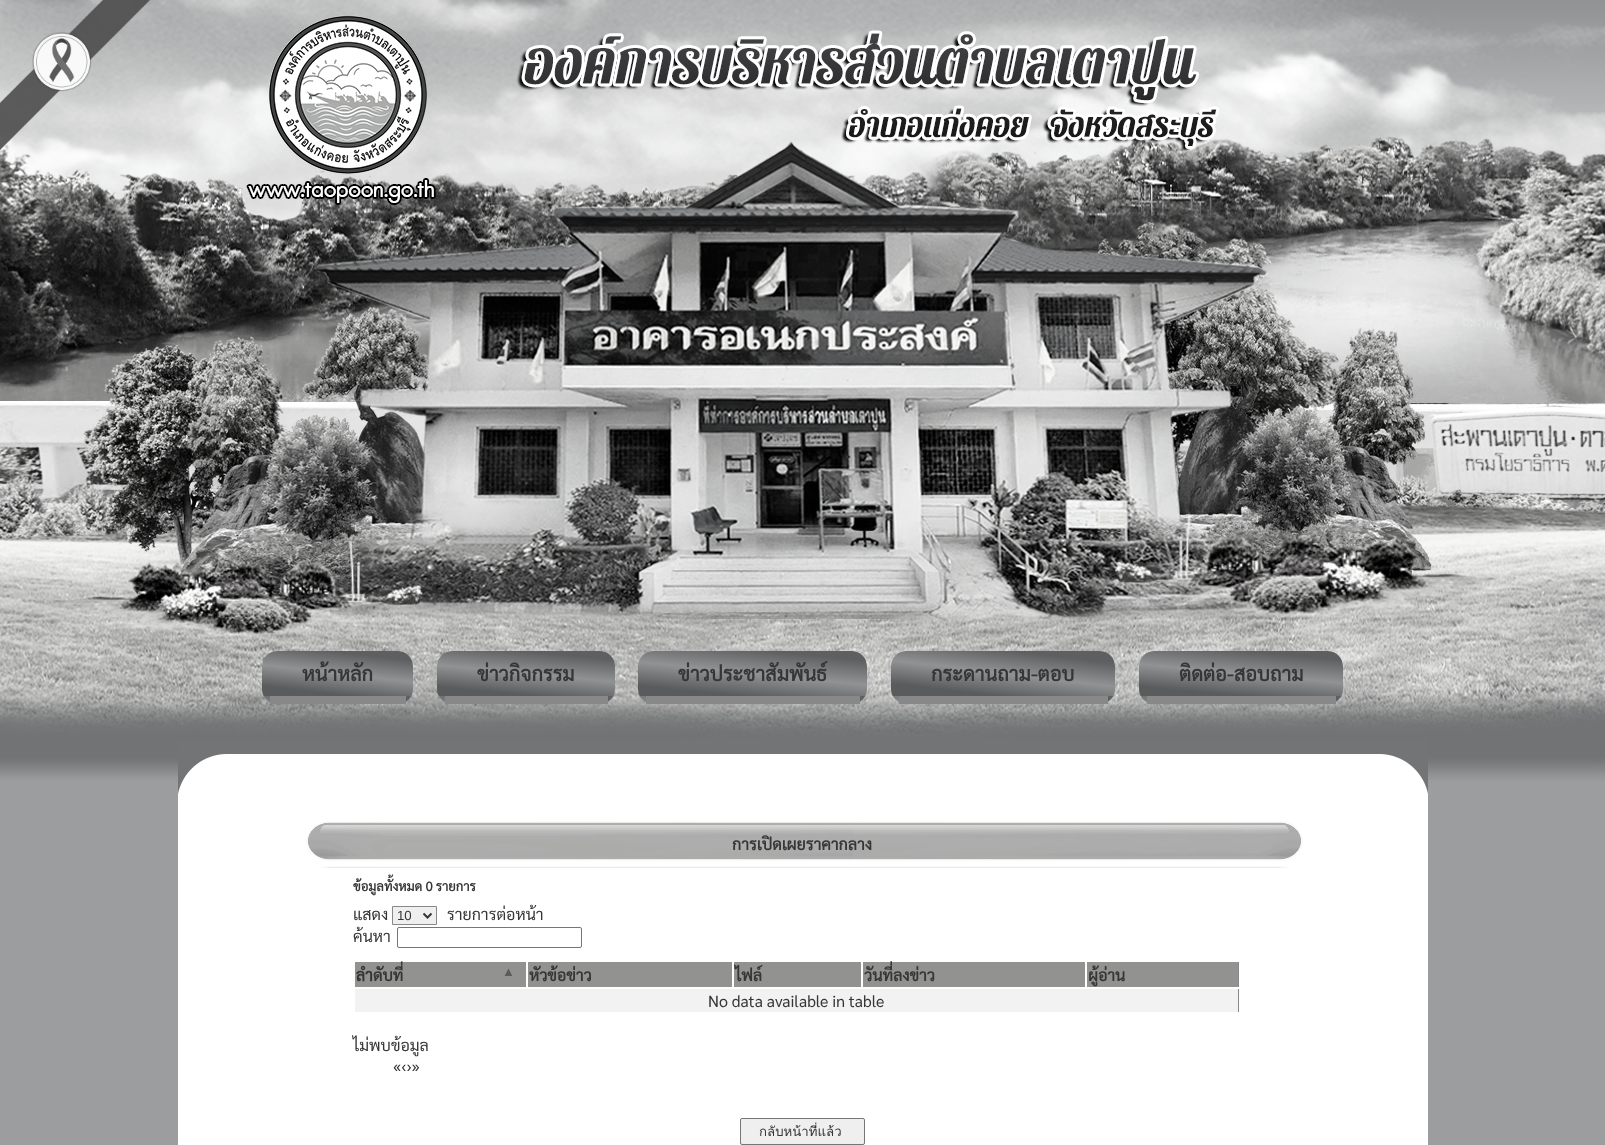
<svg xmlns="http://www.w3.org/2000/svg" width="1605" height="1145">
<style>
.a{font:bold 20px Sarabun;fill:#363636}
.b{font:bold 16px Sarabun;fill:#363636}
.c{font:bold 13px Sarabun;fill:#363636}
.d{font:16px Sarabun;fill:#363636}
.e{font:13.25px Liberation Sans;fill:#363636}
.f{font:13px Liberation Sans;fill:#5b5b5a}
.g{font:13.25px Loma;fill:#363636}
</style>
<defs>
<clipPath id="clip1"><rect x="262" y="651" width="151" height="53" rx="15"/></clipPath>
<linearGradient id="g1" gradientUnits="userSpaceOnUse" x1="334" y1="704" x2="341" y2="643"><stop offset="0.16" stop-color="#5a5b5c"/><stop offset="0.5" stop-color="#919293"/><stop offset="0.85" stop-color="#5e5f60"/></linearGradient>
<linearGradient id="g2" gradientUnits="userSpaceOnUse" x1="334" y1="749" x2="341" y2="688"><stop offset="0.16" stop-color="#5a5b5c"/><stop offset="0.5" stop-color="#919293"/><stop offset="0.85" stop-color="#5e5f60"/></linearGradient>
<clipPath id="clip2"><rect x="437" y="651" width="178" height="53" rx="15"/></clipPath>
<linearGradient id="g3" gradientUnits="userSpaceOnUse" x1="523" y1="705" x2="529" y2="642"><stop offset="0.16" stop-color="#5a5b5c"/><stop offset="0.5" stop-color="#919293"/><stop offset="0.85" stop-color="#5e5f60"/></linearGradient>
<linearGradient id="g4" gradientUnits="userSpaceOnUse" x1="523" y1="750" x2="529" y2="687"><stop offset="0.16" stop-color="#5a5b5c"/><stop offset="0.5" stop-color="#919293"/><stop offset="0.85" stop-color="#5e5f60"/></linearGradient>
<clipPath id="clip3"><rect x="638" y="651" width="229" height="53" rx="15"/></clipPath>
<linearGradient id="g5" gradientUnits="userSpaceOnUse" x1="749" y1="708" x2="756" y2="639"><stop offset="0.16" stop-color="#5a5b5c"/><stop offset="0.5" stop-color="#919293"/><stop offset="0.85" stop-color="#5e5f60"/></linearGradient>
<linearGradient id="g6" gradientUnits="userSpaceOnUse" x1="749" y1="753" x2="756" y2="684"><stop offset="0.16" stop-color="#5a5b5c"/><stop offset="0.5" stop-color="#919293"/><stop offset="0.85" stop-color="#5e5f60"/></linearGradient>
<clipPath id="clip4"><rect x="891" y="651" width="224" height="53" rx="15"/></clipPath>
<linearGradient id="g7" gradientUnits="userSpaceOnUse" x1="999" y1="707" x2="1007" y2="640"><stop offset="0.16" stop-color="#5a5b5c"/><stop offset="0.5" stop-color="#919293"/><stop offset="0.85" stop-color="#5e5f60"/></linearGradient>
<linearGradient id="g8" gradientUnits="userSpaceOnUse" x1="999" y1="752" x2="1007" y2="685"><stop offset="0.16" stop-color="#5a5b5c"/><stop offset="0.5" stop-color="#919293"/><stop offset="0.85" stop-color="#5e5f60"/></linearGradient>
<clipPath id="clip5"><rect x="1139" y="651" width="204" height="53" rx="15"/></clipPath>
<linearGradient id="g9" gradientUnits="userSpaceOnUse" x1="1238" y1="706" x2="1244" y2="641"><stop offset="0.16" stop-color="#5a5b5c"/><stop offset="0.5" stop-color="#919293"/><stop offset="0.85" stop-color="#5e5f60"/></linearGradient>
<linearGradient id="g10" gradientUnits="userSpaceOnUse" x1="1238" y1="751" x2="1244" y2="686"><stop offset="0.16" stop-color="#5a5b5c"/><stop offset="0.5" stop-color="#919293"/><stop offset="0.85" stop-color="#5e5f60"/></linearGradient>
</defs>
<rect width="100%" height="100%" fill="#fff"/>
<image href="2.png" x="0" y="0" width="178" height="739"/>
<image href="1.png" x="0" y="0" width="150" height="150"/>
<image href="3.png" x="178" y="0" width="1250" height="739"/>
<image href="4.png" x="268" y="15" width="159" height="159"/>
<image href="5.png" x="516" y="30" width="703" height="122"/>
<g clip-path="url(#clip1)">
<path fill="url(#g1)" d="M277 651h121c8.5 0 15 6.5 15 15v30h-151v-30c0-8.5 6.5-15 15-15z"/>
<path fill="url(#g2)" d="M262 696h151v7H262z"/>
</g>
<path fill="#888" d="M270 696h136v8H270z"/>
<g clip-path="url(#clip2)">
<path fill="url(#g3)" d="M452 651h148c8.5 0 15 6.5 15 15v30h-178v-30c0-8.5 6.5-15 15-15z"/>
<path fill="url(#g4)" d="M437 696h178v7H437z"/>
</g>
<path fill="#888" d="M445 696h163v8H445z"/>
<g clip-path="url(#clip3)">
<path fill="url(#g5)" d="M653 651h199c8.5 0 15 6.5 15 15v30h-229v-30c0-8.5 6.5-15 15-15z"/>
<path fill="url(#g6)" d="M638 696h229v7H638z"/>
</g>
<path fill="#888" d="M646 696h214v8H646z"/>
<g clip-path="url(#clip4)">
<path fill="url(#g7)" d="M906 651h194c8.5 0 15 6.5 15 15v30h-224v-30c0-8.5 6.5-15 15-15z"/>
<path fill="url(#g8)" d="M891 696h224v7H891z"/>
</g>
<path fill="#888" d="M899 696h209v8H899z"/>
<g clip-path="url(#clip5)">
<path fill="url(#g9)" d="M1154 651h174c8.5 0 15 6.5 15 15v30h-204v-30c0-8.5 6.5-15 15-15z"/>
<path fill="url(#g10)" d="M1139 696h204v7H1139z"/>
</g>
<path fill="#888" d="M1147 696h189v8H1147z"/>
<image href="6.png" x="1428" y="0" width="177" height="739"/>
<image href="7.png" x="0" y="739" width="178" height="406"/>
<image href="8.png" x="178" y="739" width="1250" height="55"/>
<image href="9.png" x="306" y="821" width="997" height="47"/>
<path fill="#efefef" stroke="#888" d="M392.5 906.5h44v18H392.5z"/>
<path fill="none" stroke="#363636" stroke-width="2" d="M423.5 913.5l4 4l4-4"/>
<rect fill="none" stroke="#767676" x="397.5" y="927.5" width="184" height="20" rx="1.5"/>
<path fill="#929291" d="M355 962h171v25H355z"/>
<path fill="#929291" d="M528 962h204v25H528z"/>
<path fill="#929291" d="M734 962h127v25H734z"/>
<path fill="#929291" d="M863 962h222v25H863z"/>
<path fill="#929291" d="M1087 962h151v25H1087z"/>
<path fill="#888" d="M1238 962h1v25H1238z"/>
<path fill="#f2f2f2" d="M355 989h883v23H355z"/>
<path fill="#888" d="M1238 989h1v23H1238z"/>
<rect fill="#efefef" stroke="#767676" x="740.5" y="1118.5" width="124" height="26" rx="1.5"/>
<image href="10.png" x="1428" y="739" width="177" height="406"/>
<text class="a" x="302" y="681">หน้าหลัก</text>
<text class="a" x="477" y="681">ข่าวกิจกรรม</text>
<text class="a" x="678" y="681">ข่าวประชาสัมพันธ์</text>
<text class="a" x="931" y="681">กระดานถาม-ตอบ</text>
<text class="a" x="1179" y="681">ติดต่อ-สอบถาม</text>
<text class="b" x="732" y="850">การเปิดเผยราคากลาง</text>
<text class="c" x="353" y="891">ข้อมูลทั้งหมด 0 รายการ</text>
<text class="d" x="353" y="920">แสดง</text>
<text class="e" x="397" y="920">10</text>
<text class="d" x="447" y="920">รายการต่อหน้า</text>
<text class="d" x="353" y="942">ค้นหา</text>
<text class="b" x="356" y="981">ลำดับที่</text>
<text class="f" x="502" y="976">▲</text>
<text class="b" x="529" y="981">หัวข้อข่าว</text>
<text class="b" x="735" y="981">ไฟล์</text>
<text class="b" x="864" y="981">วันที่ลงข่าว</text>
<text class="b" x="1088" y="981">ผู้อ่าน</text>
<text class="d" x="708" y="1007">No data available in table</text>
<text class="d" x="353" y="1051">ไม่พบข้อมูล</text>
<text class="d" x="393" y="1072">«‹›»</text>
<text class="g" x="759" y="1136">กลับหน้าที่แล้ว</text>
</svg>
